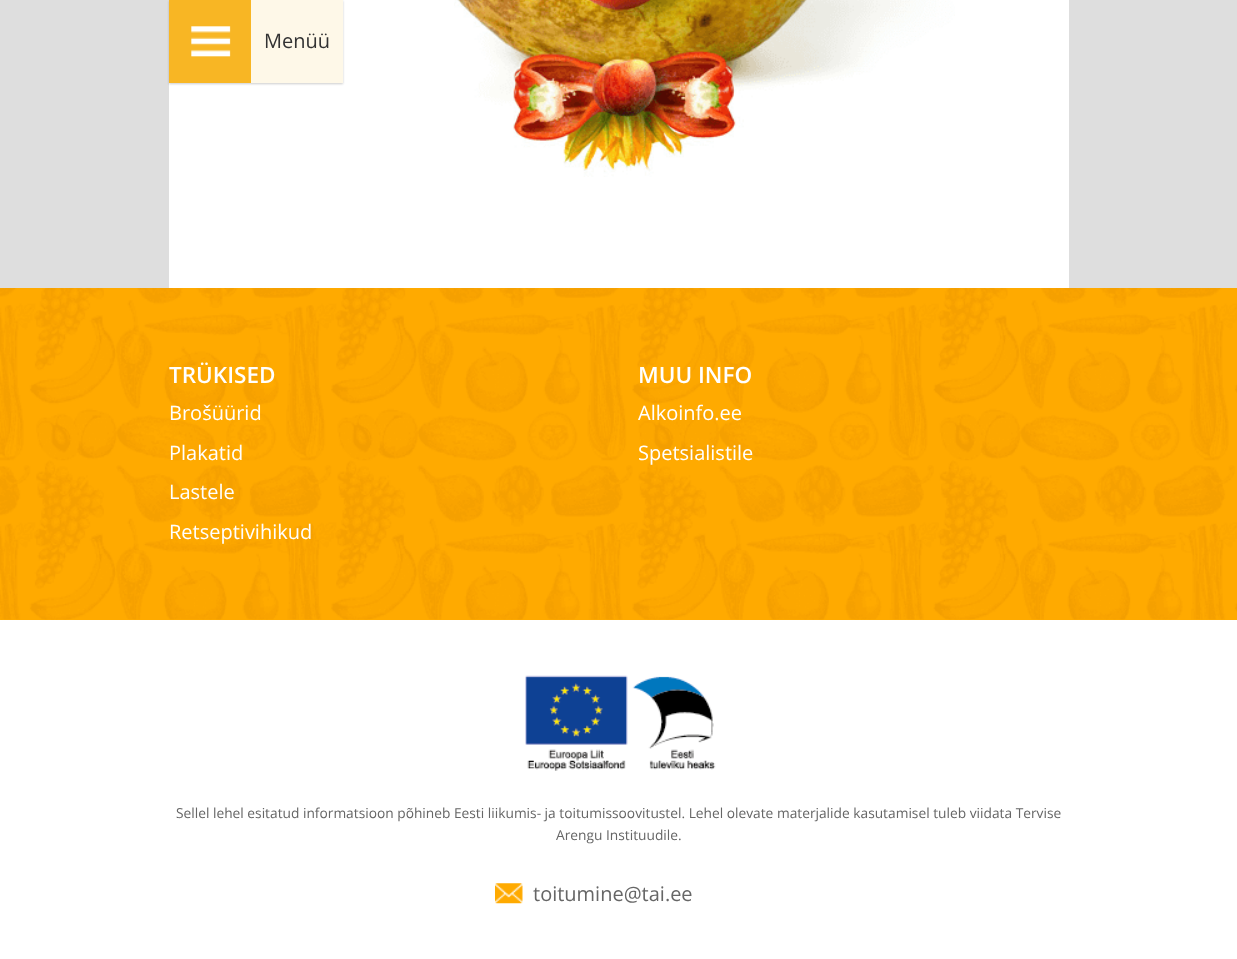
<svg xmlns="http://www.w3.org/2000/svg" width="1237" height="959">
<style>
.a{font:20px Open Sans;fill:#333}
.b{font:600 22.5px Open Sans;fill:#fff}
.c{font:20px Open Sans;fill:#fff}
.d{font:13.75px Open Sans;fill:#666}
.e{font:20px Open Sans;fill:#666}
</style>
<rect width="100%" height="100%" fill="#fff"/>
<path fill="#dedede" d="M0 0h1237v288H0z"/>
<path fill="#fff" d="M169 0h900v288H169z"/>
<image href="1.png" x="454" y="0" width="501" height="177"/>
<path fill="#00000033" filter="blur(1px)" d="M169 1h174v83H169z"/>
<path fill="#f8b624" d="M169 0h82v83H169z"/>
<image href="2.png" x="191" y="26" width="40" height="31"/>
<path fill="#fef8e8" d="M251 0h92v83H251z"/>
<path fill="#fa0" d="M0 619h1237v1H0z"/>
<image href="3.png" x="0" y="288" width="1237" height="332"/>
<image href="4.png" x="525" y="675" width="191" height="96"/>
<image href="5.png" x="495" y="883" width="28" height="21"/>
<text class="a" x="264" y="48">Menüü</text>
<text class="b" x="169" y="383">TRÜKISED</text>
<text class="c" x="169" y="420">Brošüürid</text>
<text class="c" x="169" y="460">Plakatid</text>
<text class="c" x="169" y="499">Lastele</text>
<text class="c" x="169" y="539">Retseptivihikud</text>
<text class="b" x="638" y="383">MUU INFO</text>
<text class="c" x="638" y="420">Alkoinfo.ee</text>
<text class="c" x="638" y="460">Spetsialistile</text>
<text class="d" x="176" y="818">Sellel lehel esitatud informatsioon põhineb Eesti liikumis- ja toitumissoovitustel. Lehel olevate materjalide kasutamisel tuleb viidata Tervise</text>
<text class="d" x="556" y="840">Arengu Instituudile.</text>
<text class="e" x="533" y="901">toitumine@tai.ee</text>
</svg>
